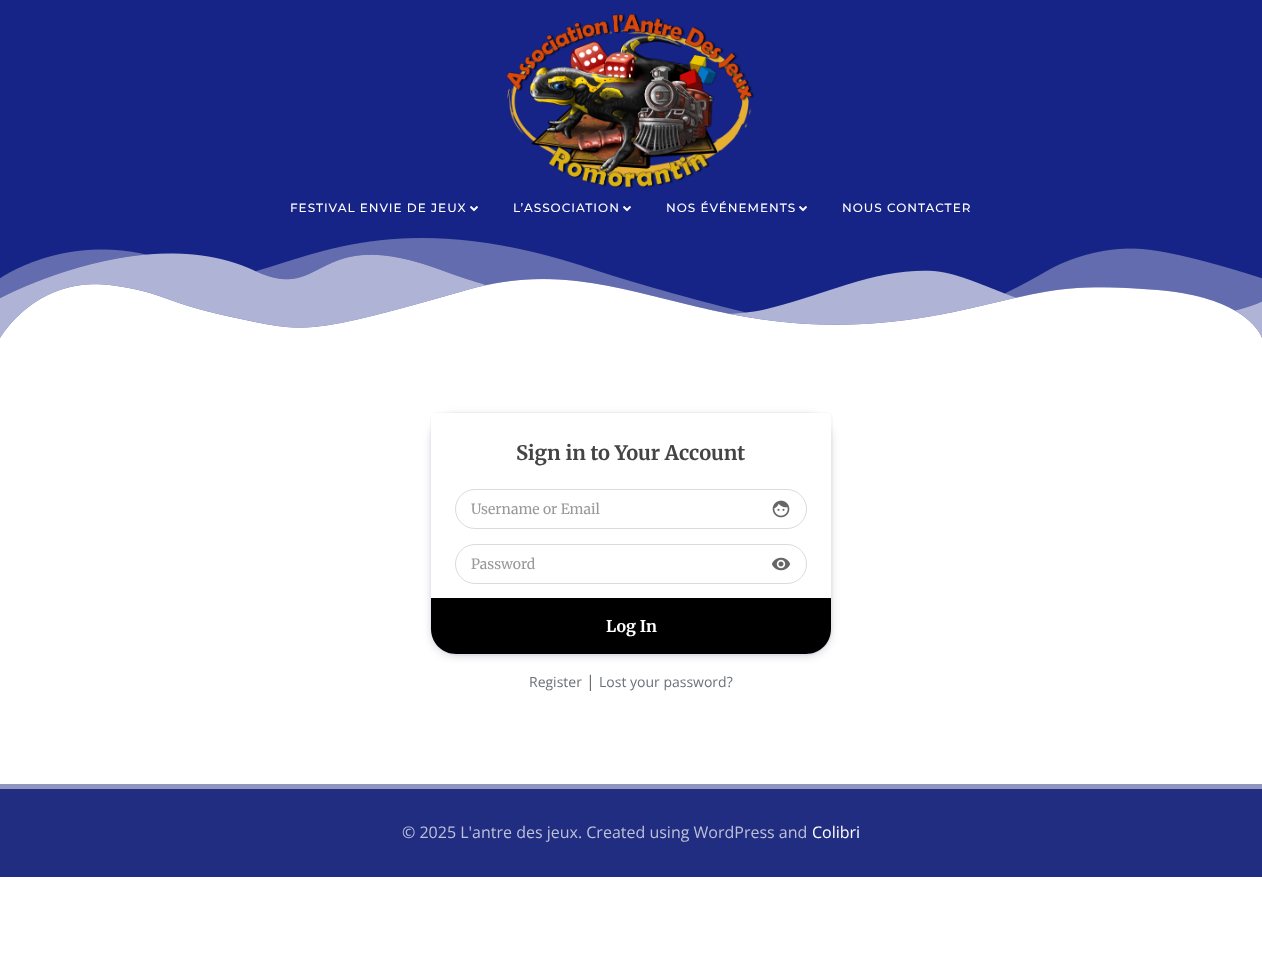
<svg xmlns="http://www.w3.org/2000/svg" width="1262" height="978">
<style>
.a{font:500 12px Montserrat;letter-spacing:1px;fill:#fff}
.b{font:bold 20px Merriweather;fill:#444}
.c{font:14px Merriweather;fill:#999}
.d{font:bold 16px Merriweather;fill:#fff}
.e{font:14px Open Sans;fill:#69717a}
.f{font:16px Open Sans;fill:#666}
.g{font:16px Open Sans;fill:#bcc0d9}
.h{font:16px Open Sans;fill:#fff}
</style>
<rect width="100%" height="100%" fill="#fff"/>
<path fill="#152486" d="M0 0h1262v338H0z"/>
<image href="1.png" x="0" y="238" width="1262" height="100"/>
<image href="2.png" x="506" y="14" width="249" height="175"/>
<image href="3.png" x="470" y="206" width="8" height="6"/>
<image href="3.png" x="623" y="206" width="8" height="6"/>
<image href="3.png" x="799" y="206" width="8" height="6"/>
<rect fill="#32375a33" filter="blur(4px)" x="431" y="415" width="400" height="241" rx="25"/>
<path fill="none" stroke="#0014281a" stroke-width="0.5" d="M435 413h393c2 0 4 2 4 4v212c0 14-12 26-26 26h-349c-14 0-26-12-26-26v-212c0-2 2-4 4-4z"/>
<path fill="#fff" d="M434 413h394c1.5 0 3 1.5 3 3v213c0 14-11 25-25 25h-350c-14 0-25-11-25-25v-213c0-1.5 1.5-3 3-3z"/>
<rect fill="none" stroke="#dbdbdb" x="455.5" y="489.5" width="351" height="39" rx="19.5"/>
<image href="4.png" x="772" y="500" width="18" height="18"/>
<rect fill="none" stroke="#dbdbdb" x="455.5" y="544.5" width="351" height="39" rx="19.5"/>
<image href="5.png" x="771" y="557" width="20" height="14"/>
<path fill="#000" d="M431 598h400v31c0 14-11 25-25 25h-350c-14 0-25-11-25-25z"/>
<path fill="#212d80" d="M0 789h1262v88H0z"/>
<path fill="#9096c0" d="M0 784h1262v5H0z"/>
<text class="a" x="290" y="212">FESTIVAL ENVIE DE JEUX</text>
<text class="a" x="513" y="212">L’ASSOCIATION</text>
<text class="a" x="666" y="212">NOS ÉVÉNEMENTS</text>
<text class="a" x="842" y="212">NOUS CONTACTER</text>
<text class="b" x="516" y="460">Sign in to Your Account</text>
<text class="c" x="471" y="514">Username or Email</text>
<text class="c" x="471" y="569">Password</text>
<text class="d" x="606" y="632">Log In</text>
<text class="e" x="529" y="687">Register</text>
<text class="f" x="586" y="687">|</text>
<text class="e" x="599" y="687">Lost your password?</text>
<text class="g" x="402" y="838">© 2025 L'antre des jeux. Created using WordPress and</text>
<text class="h" x="812" y="838">Colibri</text>
</svg>
